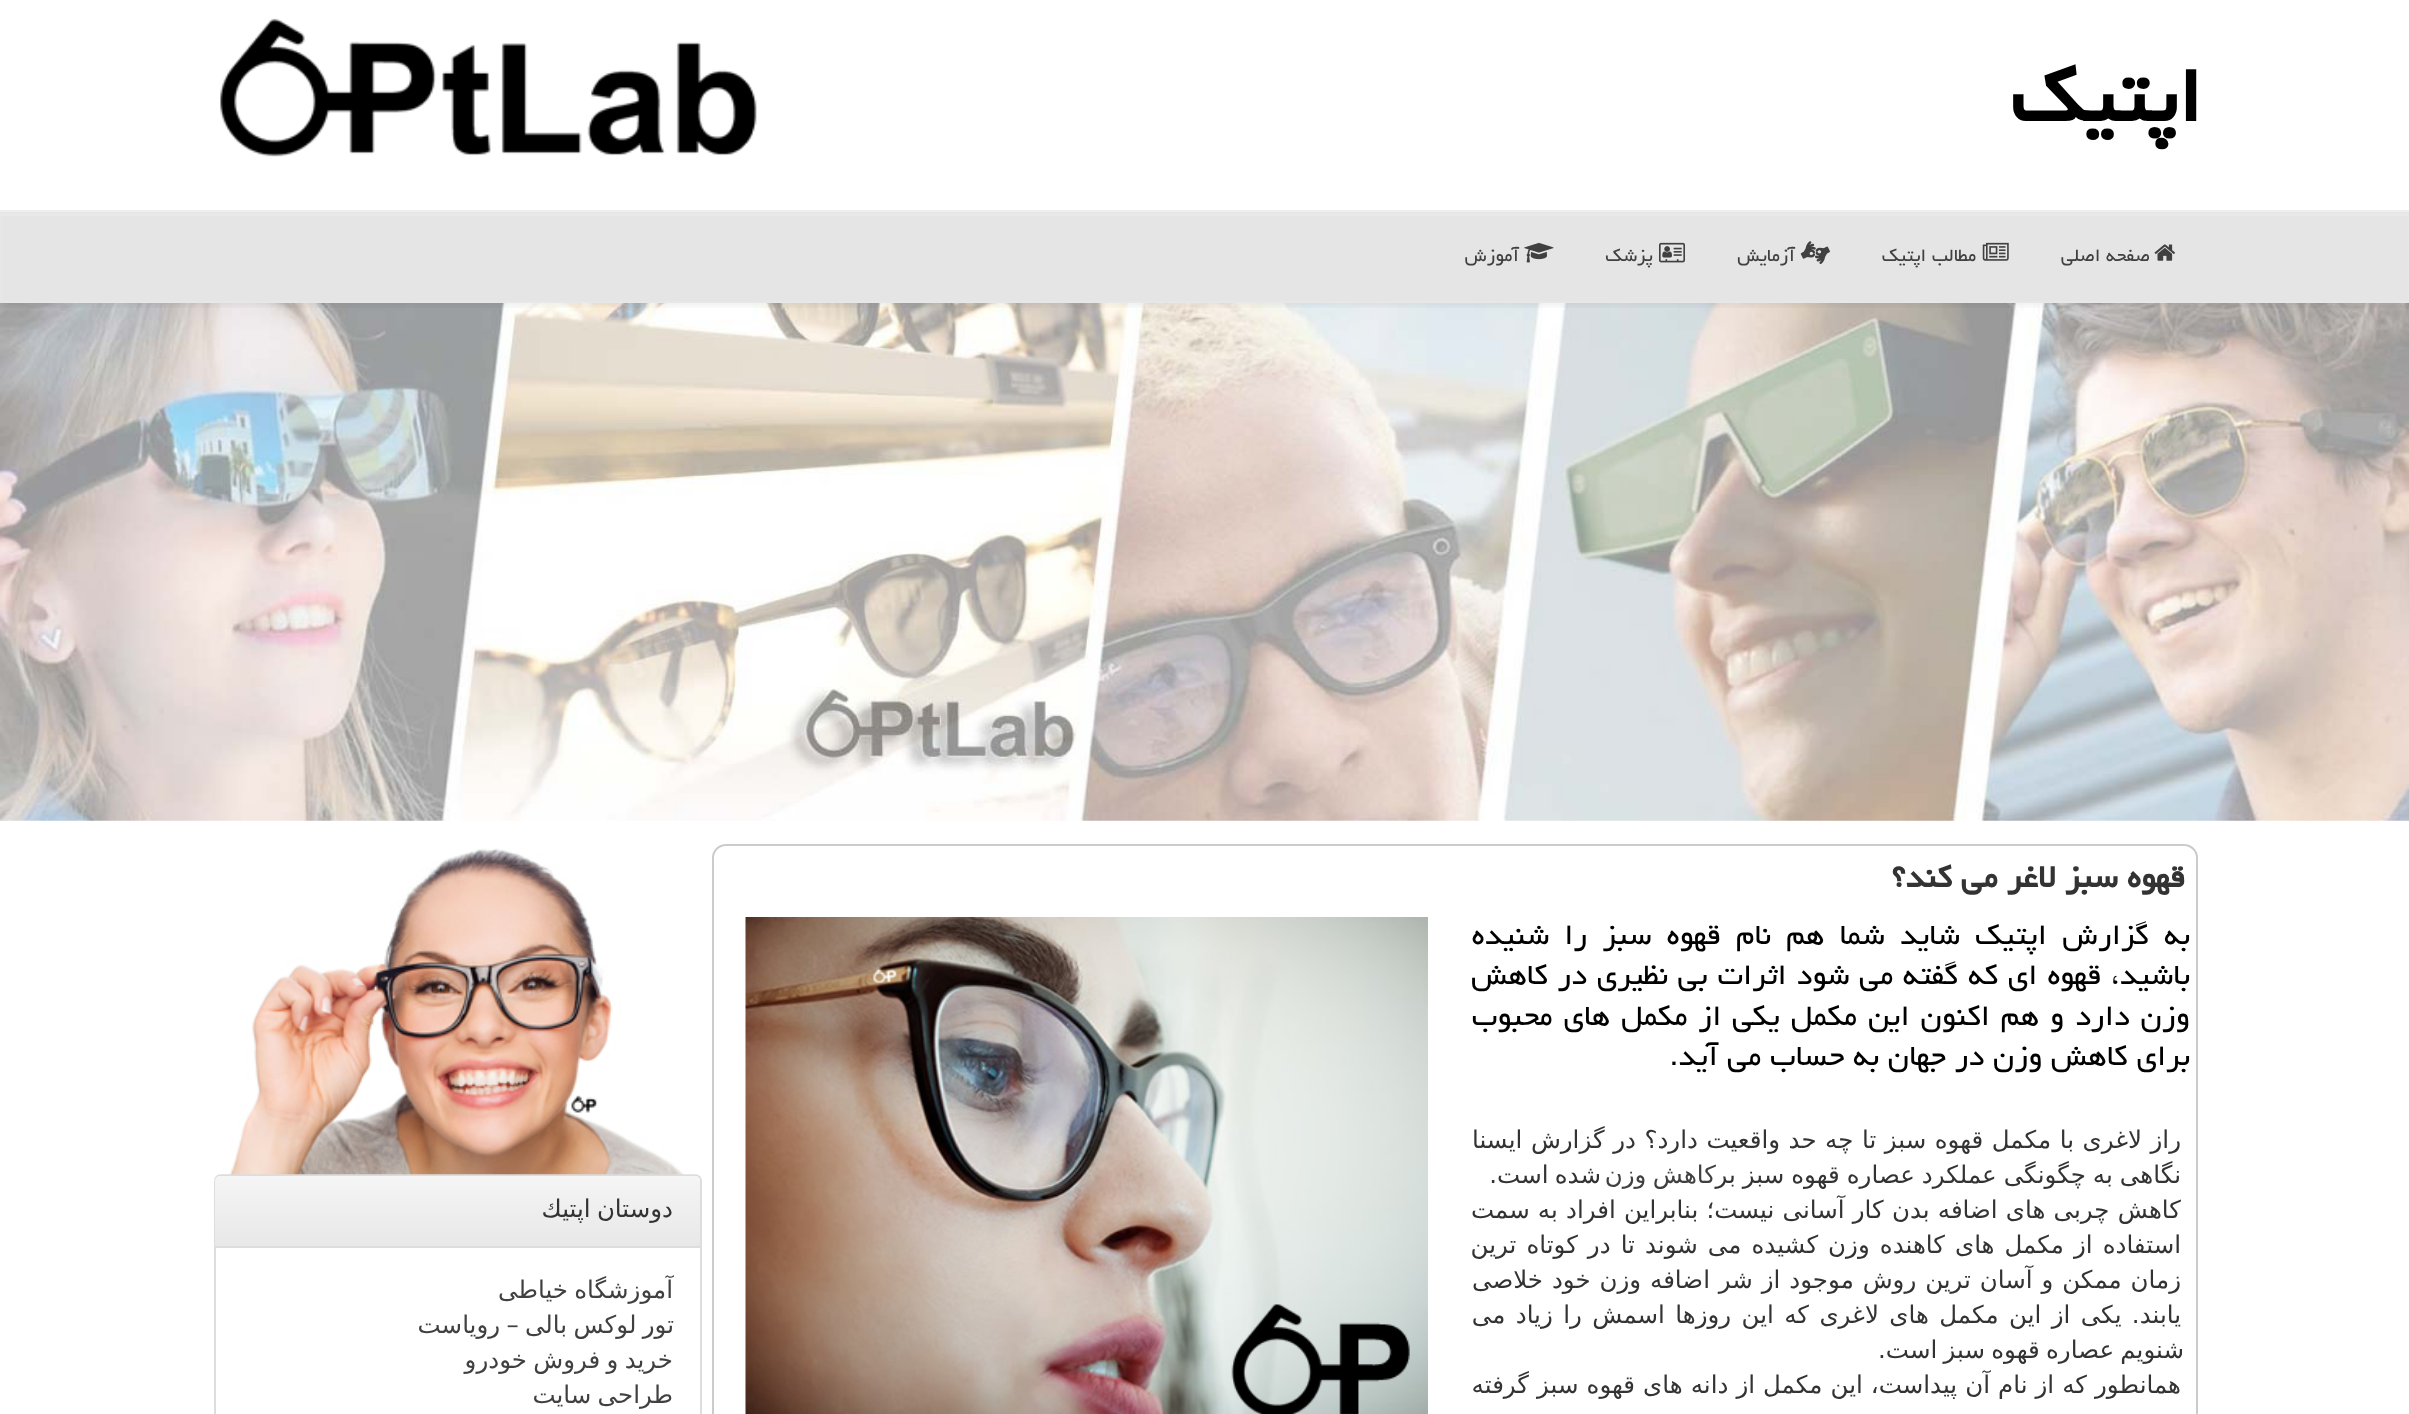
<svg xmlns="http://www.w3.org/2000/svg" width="2409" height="1414">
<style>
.a{font:bold 98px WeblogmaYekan;direction:rtl;fill:#000}
.b{font:22.75px WeblogmaYekan;direction:rtl;fill:#404040}
.c{font:bold 39.25px WeblogmaYekan;direction:rtl;fill:#333}
.d{font:36.75px WeblogmaYekan;direction:rtl;fill:#000}
.e{font:24.5px DejaVu Sans;direction:rtl;fill:#333}
.f{font:24.5px DejaVu Sans;direction:rtl;fill:#404040}
</style>
<defs>
<clipPath id="clip1"><path d="M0 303h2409v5H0z"/></clipPath>
<linearGradient id="g1" gradientUnits="userSpaceOnUse" x1="458" y1="1176" x2="458" y2="1246"><stop offset="0" stop-color="#f5f5f5"/><stop offset="1" stop-color="#e8e8e8"/></linearGradient>
</defs>
<rect width="100%" height="100%" fill="#fff"/>
<path fill="#eee" d="M0 210h2409v2H0z"/>
<image href="1.png" x="220" y="18" width="537" height="139"/>
<image href="7.png" x="0" y="303" width="2409" height="518"/>
<g clip-path="url(#clip1)">
<path fill="#00000012" filter="blur(4.5px)" d="M0 214h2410v91H0z"/>
</g>
<path fill="#0000001a" d="M2 216h2406v85H2z"/>
<path fill="#e9e9e9" d="M2 214h2406v2H2z"/>
<path fill="none" stroke="#e7e7e7" stroke-width="2" d="M1 213h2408v89H1z"/>
<image href="2.png" x="2154" y="244" width="21" height="17"/>
<image href="3.png" x="1982" y="242" width="27" height="19"/>
<image href="4.png" x="1800" y="241" width="30" height="23"/>
<image href="5.png" x="1659" y="242" width="26" height="21"/>
<image href="6.png" x="1524" y="242" width="30" height="21"/>
<rect fill="none" stroke="#cbcbcb" stroke-width="2" x="713" y="845" width="1484" height="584" rx="13"/>
<image href="8.png" x="745" y="917" width="683" height="497"/>
<rect fill="none" stroke="#ddd" stroke-width="2" x="215" y="1175" width="486" height="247" rx="6"/>
<image href="9.png" x="218" y="848" width="480" height="327"/>
<path fill="url(#g1)" d="M220 1176h475c3 0 5 2 5 5v65h-485v-65c0-3 2-5 5-5z"/>
<path fill="#ddd" d="M215 1246h485v2H215z"/>
<text class="a" x="2202" y="121">اپتیك</text>
<text class="b" x="2150" y="261">صفحه اصلی</text>
<text class="b" x="1976" y="261">مطالب اپتیك</text>
<text class="b" x="1795" y="261">آزمایش</text>
<text class="b" x="1653" y="261">پزشک</text>
<text class="b" x="1519" y="261">آموزش</text>
<text class="c" x="2185" y="887">قهوه سبز لاغر می كند؟</text>
<text class="d" x="2190" y="944" word-spacing="6.25">به گزارش اپتیك شاید شما هم نام قهوه سبز را شنیده</text>
<text class="d" x="2190" y="984" word-spacing="0.9">باشید، قهوه ای كه گفته می شود اثرات بی نظیری در كاهش</text>
<text class="d" x="2190" y="1025" word-spacing="2.1">وزن دارد و هم اكنون این مكمل یكی از مكمل های محبوب</text>
<text class="d" x="2190" y="1065">برای كاهش وزن در جهان به حساب می آید.</text>
<text class="e" x="2181" y="1148" word-spacing="0.75">راز لاغری با مكمل قهوه سبز تا چه حد واقعیت دارد؟ در گزارش ایسنا</text>
<text class="e" x="2181" y="1183" word-spacing="-0.75">نگاهی به چگونگی عملكرد عصاره قهوه سبز بر</text>
<text class="f" x="1716" y="1183" word-spacing="-1.5">كاهش وزن</text>
<text class="e" x="1601" y="1183" word-spacing="-1.5">شده است.</text>
<text class="e" x="2181" y="1218" word-spacing="0.4">كاهش چربی های اضافه بدن كار آسانی نیست؛ بنابراین افراد به سمت</text>
<text class="e" x="2181" y="1253" word-spacing="2.25">استفاده از مكمل های كاهنده وزن كشیده می شوند تا در كوتاه ترین</text>
<text class="e" x="2181" y="1288" word-spacing="1.1">زمان ممكن و آسان ترین روش موجود از شر اضافه وزن خود خلاصی</text>
<text class="e" x="2181" y="1323" word-spacing="2.6">یابند. یكی از این مكمل های لاغری كه این روزها اسمش را زیاد می</text>
<text class="e" x="2184" y="1358" word-spacing="-1.5">شنویم عصاره قهوه سبز است.</text>
<text class="e" x="2181" y="1393" word-spacing="0.25">همانطور كه از نام آن پیداست، این مكمل از دانه های قهوه سبز گرفته</text>
<text class="e" x="673" y="1217" word-spacing="-1.5">دوستان اپتیك</text>
<text class="f" x="673" y="1298" word-spacing="-1.5">آموزشگاه خیاطی</text>
<text class="f" x="674" y="1333" word-spacing="-1.5">تور لوکس بالی – رویاست</text>
<text class="f" x="673" y="1368" word-spacing="-1.5">خرید و فروش خودرو</text>
<text class="f" x="673" y="1403" word-spacing="-1.5">طراحی سایت</text>
</svg>
